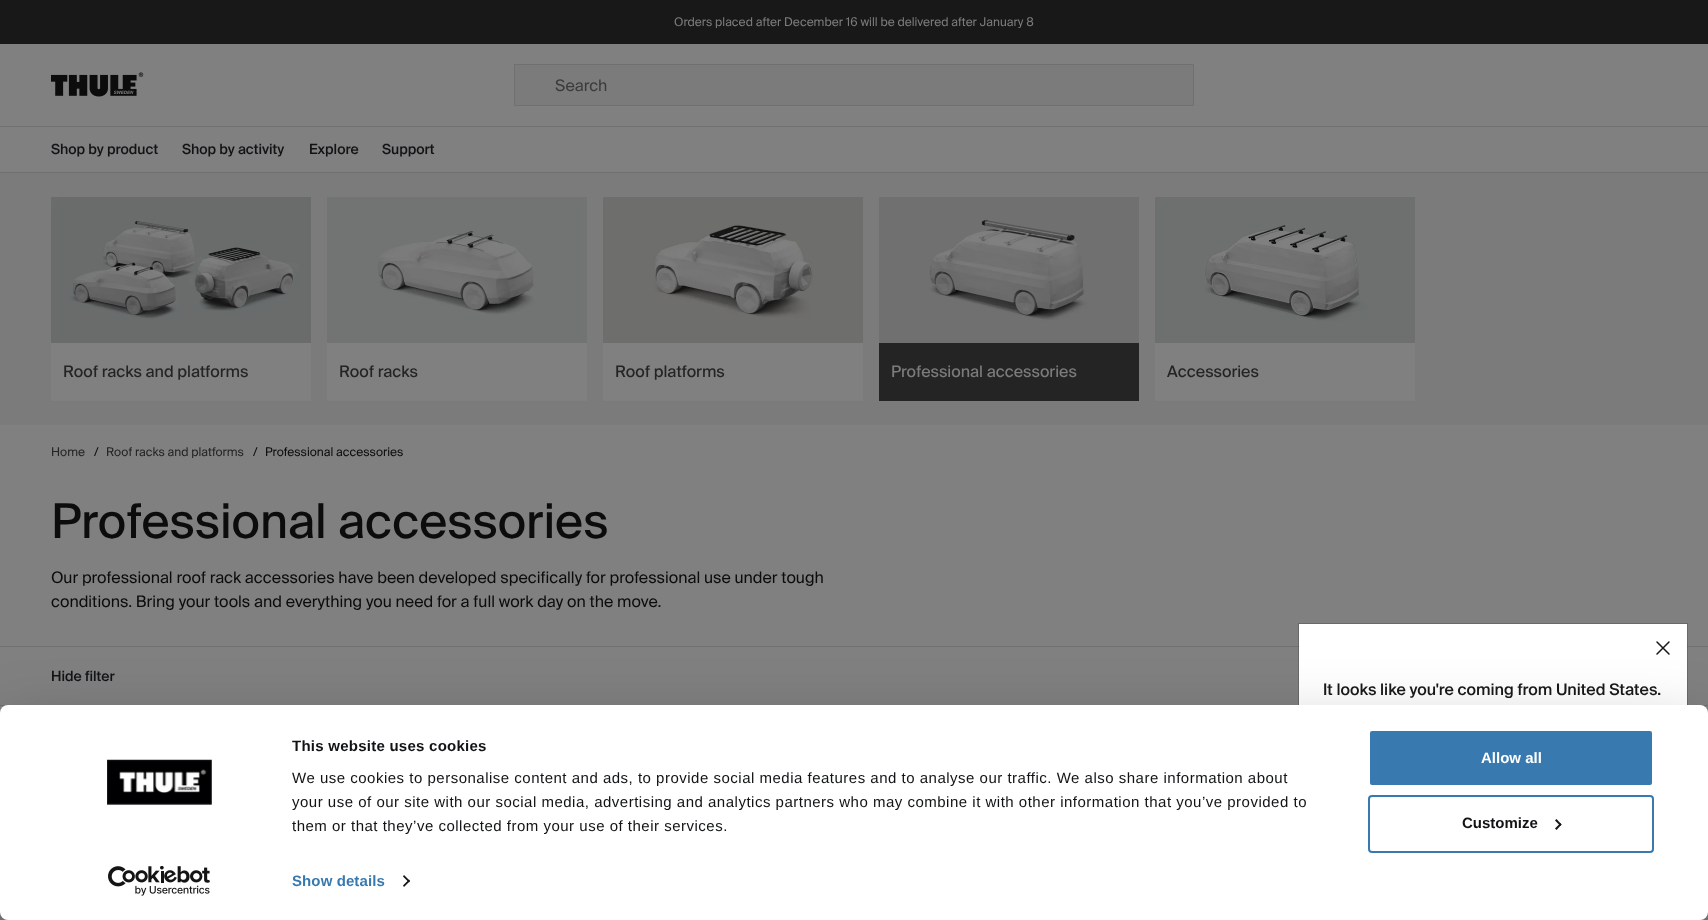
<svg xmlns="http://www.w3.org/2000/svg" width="1708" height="920">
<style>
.a{font:12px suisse;fill:#7b7b7b}
.b{font:16px suisse;fill:#3b3b3b}
.c{font:500 14px suisse;fill:#111315}
.d{font:16px 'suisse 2';fill:#242424}
.e{font:16px 'suisse 2';fill:#7b7b7b}
.f{font:12px suisse;fill:#242424}
.g{font:12px suisse;fill:#0c0c0c}
.h{font:48px 'suisse 2';fill:#0c0c0c}
.i{font:16px suisse;fill:#0c0c0c}
.j{font:500 16px suisse;fill:#181818}
.k{font:bold 15px Liberation Sans;letter-spacing:0.25px;fill:#111315}
.l{font:15px Liberation Sans;letter-spacing:0.5px;fill:#111315}
.m{font:bold 15px Liberation Sans;letter-spacing:0.1px;fill:#387ab0}
.n{font:bold 15px Liberation Sans;fill:#fff}
.o{font:bold 15px Liberation Sans;fill:#111315}
</style>
<rect width="100%" height="100%" fill="#808080"/>
<path fill="#181818" d="M0 0h1708v44H0z"/>
<path fill="#707070" d="M0 172h1708v1H0z"/>
<path fill="#707070" d="M0 126h1708v1H0z"/>
<image href="1.png" x="51" y="72" width="93" height="25"/>
<path fill="none" stroke="#707070" d="M514.5 64.5h679v41H514.5z"/>
<path fill="#7b7b7b" d="M515 65h678v40H515z"/>
<path fill="#7b7b7b" d="M0 173h1708v252H0z"/>
<image href="2.png" x="51" y="197" width="260" height="146"/>
<path fill="#808080" d="M51 343h260v58H51z"/>
<image href="3.png" x="327" y="197" width="260" height="146"/>
<path fill="#808080" d="M327 343h260v58H327z"/>
<image href="4.png" x="603" y="197" width="260" height="146"/>
<path fill="#808080" d="M603 343h260v58H603z"/>
<image href="5.png" x="879" y="197" width="260" height="146"/>
<path fill="#242424" d="M879 343h260v58H879z"/>
<image href="6.png" x="1155" y="197" width="260" height="146"/>
<path fill="#808080" d="M1155 343h260v58H1155z"/>
<path fill="#707070" d="M0 646h1708v1H0z"/>
<path fill="#707070" d="M0 705h1708v1H0z"/>
<path fill="#fff" d="M1299 624h388v81H1299z"/>
<path fill="none" stroke="#0000002e" d="M1298.5 623.5h389v276H1298.5z"/>
<path fill="none" stroke="#181818" stroke-width="1.5" stroke-linecap="round" stroke-linejoin="round" d="M1669 642l-12 12m0-12l12 12"/>
<rect fill="#0000004d" filter="blur(35px)" y="735" width="1708" height="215" rx="8"/>
<rect fill="#fff" y="705" width="1708" height="215" rx="8"/>
<image href="7.png" x="107" y="759" width="105" height="46"/>
<image href="8.png" x="108" y="866" width="102" height="30"/>
<path fill="#141414" d="M404 875l6 6l-1 1.5l-6-6z"/>
<path fill="#141414" d="M409 879.5l1 1.5l-6 6l-1-1.5z"/>
<rect fill="#387ab0" stroke="#fff" stroke-width="2" x="1369" y="730" width="284" height="56" rx="3"/>
<rect fill="none" stroke="#387ab0" stroke-width="2" x="1369" y="796" width="284" height="56" rx="3"/>
<path fill="#141414" d="M1556.5 819l5 5.5l-1 1.5l-5.5-5.5z"/>
<path fill="#141414" d="M1560.5 823l1 1.5l-5 5.5l-1.5-1.5z"/>
<text class="a" x="674" y="26">Orders placed after December 16 will be delivered after January 8</text>
<text class="b" x="555" y="91">Search</text>
<text class="c" x="51" y="154">Shop by product</text>
<text class="c" x="182" y="154">Shop by activity</text>
<text class="c" x="309" y="154">Explore</text>
<text class="c" x="382" y="154">Support</text>
<text class="d" x="63" y="377">Roof racks and platforms</text>
<text class="d" x="339" y="377">Roof racks</text>
<text class="d" x="615" y="377">Roof platforms</text>
<text class="e" x="891" y="377">Professional accessories</text>
<text class="d" x="1167" y="377">Accessories</text>
<text class="f" x="51" y="456">Home</text>
<text class="g" x="94" y="456">/</text>
<text class="f" x="106" y="456">Roof racks and platforms</text>
<text class="g" x="253" y="456">/</text>
<text class="g" x="265" y="456">Professional accessories</text>
<text class="h" x="51" y="538">Professional accessories</text>
<text class="i" x="51" y="583">Our professional roof rack accessories have been developed specifically for professional use under tough</text>
<text class="i" x="51" y="607">conditions. Bring your tools and everything you need for a full work day on the move.</text>
<text class="c" x="51" y="681">Hide filter</text>
<text class="j" x="1323" y="695">It looks like you're coming from United States.</text>
<text class="k" x="292" y="751">This website uses cookies</text>
<text class="l" x="292" y="783">We use cookies to personalise content and ads, to provide social media features and to analyse our traffic. We also share information about</text>
<text class="l" x="292" y="807">your use of our site with our social media, advertising and analytics partners who may combine it with other information that you’ve provided to</text>
<text class="l" x="292" y="831">them or that they’ve collected from your use of their services.</text>
<text class="m" x="292" y="886">Show details</text>
<text class="n" x="1481" y="763">Allow all</text>
<text class="o" x="1462" y="828">Customize</text>
</svg>
